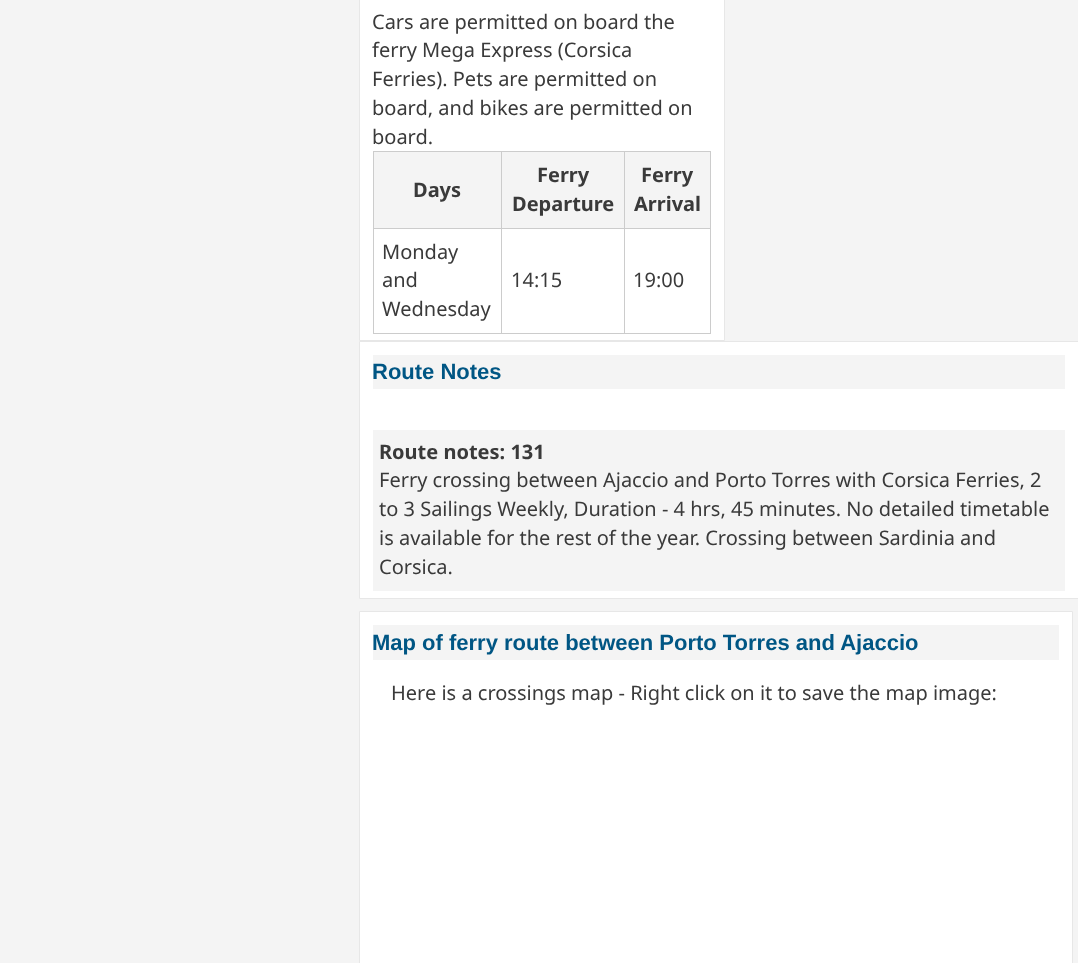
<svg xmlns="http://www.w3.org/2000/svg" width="1078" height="963">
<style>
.a{font:20px Noto Sans;fill:#3a3a3a}
.b{font:bold 20px Noto Sans;fill:#3a3a3a}
.c{font:bold 22px Liberation Sans;fill:#005684}
</style>
<rect width="100%" height="100%" fill="#f4f4f4"/>
<path fill="#fff" stroke="#e7e7e7" d="M359.5 -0.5h365v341H359.5z"/>
<path fill="#f4f4f4" d="M374 152h250v76H374z"/>
<path fill="#ccc" d="M624 151h87v1H624z"/>
<path fill="#ccc" d="M624 228h87v1H624z"/>
<path fill="#ccc" d="M710 228h1v106H710z"/>
<path fill="#ccc" d="M624 333h87v1H624z"/>
<path fill="#ccc" d="M624 228h1v106H624z"/>
<path fill="#ccc" d="M501 228h124v1H501z"/>
<path fill="#ccc" d="M624 151h1v78H624z"/>
<path fill="#ccc" d="M501 151h124v1H501z"/>
<path fill="#ccc" d="M501 333h124v1H501z"/>
<path fill="#ccc" d="M501 228h1v106H501z"/>
<path fill="#ccc" d="M373 228h130v1H373z"/>
<path fill="#ccc" d="M501 151h1v78H501z"/>
<path fill="#ccc" d="M373 151h130v1H373z"/>
<path fill="#ccc" d="M373 333h130v1H373z"/>
<path fill="#ccc" d="M373 228h1v106H373z"/>
<path fill="#ccc" d="M373 151h1v78H373z"/>
<path fill="#f4f4f4" d="M625 152h85v76H625z"/>
<path fill="#ccc" d="M710 151h1v78H710z"/>
<path fill="#fff" stroke="#e7e7e7" d="M359.5 341.5h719v257H359.5z"/>
<path fill="#f4f4f4" d="M373 355h692v34H373z"/>
<path fill="#f4f4f4" d="M373 430h692v161H373z"/>
<path fill="#fff" stroke="#e7e7e7" d="M359.5 611.5h713v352H359.5z"/>
<path fill="#f4f4f4" d="M373 625h686v35H373z"/>
<text class="a" x="372" y="29">Cars are permitted on board the</text>
<text class="a" x="372" y="57">ferry Mega Express (Corsica</text>
<text class="a" x="372" y="86">Ferries). Pets are permitted on</text>
<text class="a" x="372" y="115">board, and bikes are permitted on</text>
<text class="a" x="372" y="144">board.</text>
<text class="b" x="413" y="197">Days</text>
<text class="b" x="537" y="182">Ferry</text>
<text class="b" x="512" y="211">Departure</text>
<text class="b" x="641" y="182">Ferry</text>
<text class="b" x="634" y="211">Arrival</text>
<text class="a" x="382" y="259">Monday</text>
<text class="a" x="382" y="287">and</text>
<text class="a" x="382" y="316">Wednesday</text>
<text class="a" x="511" y="287">14:15</text>
<text class="a" x="633" y="287">19:00</text>
<text class="c" x="372" y="379">Route Notes</text>
<text class="b" x="379" y="459">Route notes: 131</text>
<text class="a" x="379" y="487">Ferry crossing between Ajaccio and Porto Torres with Corsica Ferries, 2</text>
<text class="a" x="379" y="516">to 3 Sailings Weekly, Duration - 4 hrs, 45 minutes. No detailed timetable</text>
<text class="a" x="379" y="545">is available for the rest of the year. Crossing between Sardinia and</text>
<text class="a" x="379" y="574">Corsica.</text>
<text class="c" x="372" y="650">Map of ferry route between Porto Torres and Ajaccio</text>
<text class="a" x="391" y="700">Here is a crossings map - Right click on it to save the map image:</text>
</svg>
